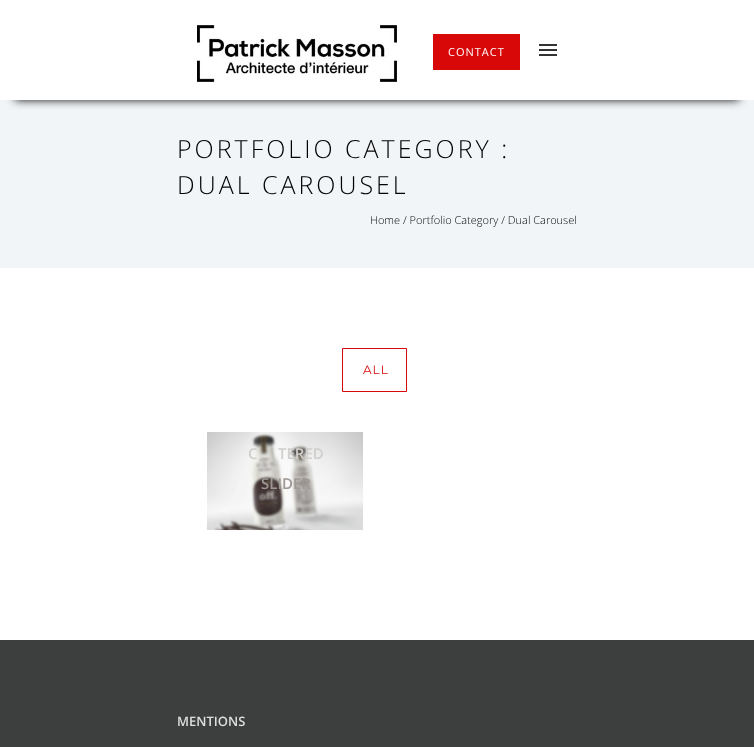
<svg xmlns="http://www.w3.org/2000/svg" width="754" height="747">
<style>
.a{font:11px Open Sans;letter-spacing:1px;fill:#fff}
.b{font:300 25px Open Sans;letter-spacing:3px;fill:#000}
.c{font:300 11px Open Sans;fill:#000}
.d{font:12px Montserrat;letter-spacing:1px;fill:#d80808}
.e{font:600 15px Open Sans;fill:#d0cfcc}
.f{font:600 15px Open Sans;fill:#9e9895}
.g{font:600 13px Open Sans;fill:#dfdfdf}
</style>
<defs>
<clipPath id="clip1"><path d="M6 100h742v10H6z"/></clipPath>
</defs>
<rect width="100%" height="100%" fill="#fff"/>
<path fill="#f2f5f8" d="M0 100h754v168H0z"/>
<g clip-path="url(#clip1)">
<path fill="#111" filter="blur(5px)" d="M15 30h724v70H15z"/>
</g>
<image href="1.png" x="197" y="25" width="200" height="57"/>
<path fill="#d80808" d="M433 34h87v36H433z"/>
<path fill="#323232" d="M539 44h18v2H539z"/>
<path fill="#323232" d="M539 49h18v2H539z"/>
<path fill="#323232" d="M539 54h18v2H539z"/>
<path fill="none" stroke="#d80808" d="M342.5 348.5h64v43H342.5z"/>
<image href="2.png" x="207" y="432" width="156" height="98"/>
<path fill="#3d3f3e" d="M0 640h754v107H0z"/>
<text class="a" x="448" y="56">CONTACT</text>
<text class="b" x="177" y="158">PORTFOLIO CATEGORY :</text>
<text class="b" x="177" y="194">DUAL CAROUSEL</text>
<text class="c" x="370" y="224">Home / Portfolio Category / Dual Carousel</text>
<text class="d" x="363" y="374">ALL</text>
<text class="e" x="248" y="459">C</text>
<text class="e" x="278" y="459">TERED</text>
<text class="f" x="261" y="489">SLIDER</text>
<text class="g" x="177" y="726">MENTIONS</text>
</svg>
